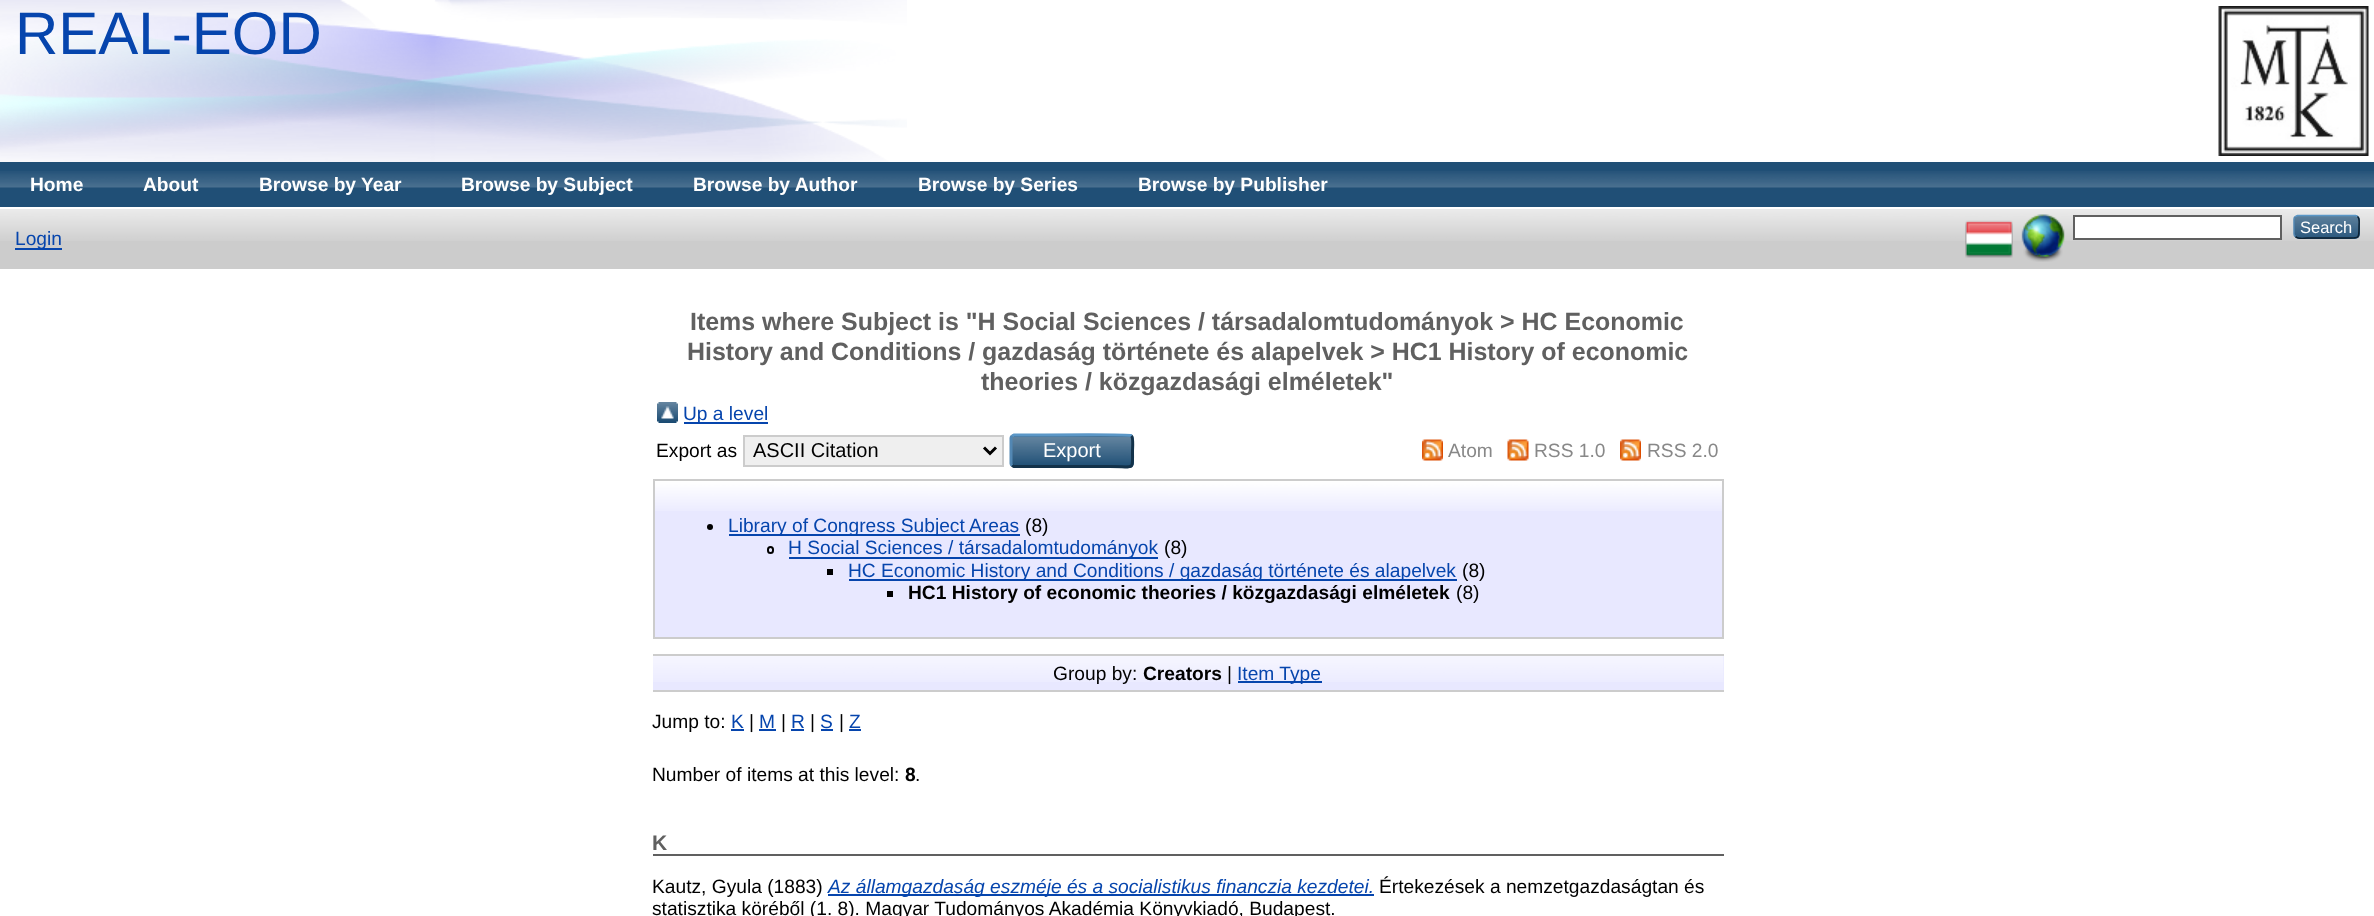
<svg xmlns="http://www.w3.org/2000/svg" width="2374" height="916">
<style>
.a{font:60px Liberation Sans;fill:#0645ad}
.b{font:bold 19.2px Liberation Sans;fill:#fff}
.c{font:16.5px Liberation Sans;fill:#fff}
.d{font:19.2px Liberation Sans;fill:#0645ad}
.e{font:bold 24.95px Liberation Sans;fill:#606060}
.f{font:19.2px Liberation Sans;fill:#000}
.g{font:20px Liberation Sans;fill:#000}
.h{font:20px Liberation Sans;fill:#fff}
.i{font:19.2px Liberation Sans;fill:#888}
.j{font:bold 19.2px Liberation Sans;fill:#000}
.k{font:bold 21px Liberation Sans;fill:#606060}
.l{font:italic 19.2px Liberation Sans;fill:#0645ad}
</style>
<rect width="100%" height="100%" fill="#fff"/>
<image href="1.png" x="0" y="0" width="907" height="162"/>
<image href="2.png" x="2218" y="6" width="151" height="150"/>
<path fill="#204f76" d="M0 162h2374v45H0z"/>
<image href="3.png" x="0" y="171" width="2374" height="17"/>
<path fill="#ccc" d="M0 209h2374v60H0z"/>
<image href="4.png" x="0" y="209" width="2374" height="32"/>
<image href="5.png" x="1965" y="220" width="48" height="38"/>
<image href="6.png" x="2021" y="214" width="44" height="48"/>
<path fill="#fff" stroke="#606060" stroke-width="2" d="M2074 216h207v23H2074z"/>
<rect fill="#1f4f76" x="2294" y="215" width="66" height="24" rx="5"/>
<image href="7.png" x="2294" y="215" width="66" height="23"/>
<path fill="none" stroke="#5b97c7" stroke-width="1.5" d="M2295.5 216.5l2-1h58l2 1"/>
<path fill="none" stroke="#0d2131" stroke-width="1.5" d="M2357.5 216.5c2.5 2 1.5 7 1.5 10c0 13 .5 11.5-13.5 11.5h-38c-.5 0-9.5 1.5-12-1.5"/>
<path fill="none" stroke="#5287b3" stroke-width="1.5" d="M2295.5 236.5c-1-.5-1.5-1.5-1.5-2.5v-15c0-1 .5-2 1.5-2.5"/>
<path fill="#0645ad" d="M15 248h47v2H15z"/>
<image href="8.png" x="657" y="402" width="21" height="21"/>
<path fill="#0645ad" d="M684 422h84v2H684z"/>
<path fill="#efefef" stroke="#ccc" stroke-width="2" d="M744 436h259v30H744z"/>
<path fill="none" stroke="#000" stroke-width="3" d="M984 447.5l6 6l6-6"/>
<rect fill="#1f4f76" x="1010" y="434" width="124" height="34" rx="5"/>
<image href="9.png" x="1012" y="436" width="122" height="29"/>
<path fill="none" stroke="#5b97c7" stroke-width="3" d="M1012 436l2-1h19c10.5 0 96-1 98 .5l.5 .5"/>
<path fill="none" stroke="#13324a" stroke-width="3" d="M1131.5 436c2 2 1 12 1 15c0 20.5 2.5 15.5-22.5 15.5h-96l-2-1"/>
<path fill="none" stroke="#5287b3" stroke-width="3" d="M1012 465.5c-.5-.5-1-1-1-2v-25.5c0-1 .5-1.5 1-2"/>
<image href="10.png" x="1422" y="439" width="21" height="22"/>
<image href="11.png" x="1507" y="439" width="22" height="22"/>
<image href="10.png" x="1620" y="439" width="21" height="22"/>
<path fill="#e8e8ff" d="M655 481h1067v156H655z"/>
<image href="12.png" x="655" y="481" width="1067" height="30"/>
<path fill="none" stroke="#ccc" stroke-width="2" d="M654 480h1069v158H654z"/>
<circle fill="#000" cx="710" cy="527" r="3"/>
<path fill="#0645ad" d="M729 534h291v2H729z"/>
<rect fill="none" stroke="#000" stroke-width="2" x="768" y="547" width="5" height="6" rx="2.5"/>
<path fill="#0645ad" d="M789 557h369v2H789z"/>
<path fill="#000" d="M827 569h6v6H827z"/>
<path fill="#0645ad" d="M849 579h608v2H849z"/>
<path fill="#000" d="M887 591h6v6H887z"/>
<path fill="#e8e8ff" d="M653 656h1071v34H653z"/>
<image href="13.png" x="653" y="656" width="1071" height="26"/>
<path fill="#ccc" d="M653 654h1071v2H653z"/>
<path fill="#ccc" d="M653 690h1071v2H653z"/>
<path fill="#0645ad" d="M1238 681h84v2H1238z"/>
<path fill="#0645ad" d="M731 729h13v2H731z"/>
<path fill="#0645ad" d="M759 729h17v2H759z"/>
<path fill="#0645ad" d="M791 729h13v2H791z"/>
<path fill="#0645ad" d="M821 729h12v2H821z"/>
<path fill="#0645ad" d="M849 729h12v2H849z"/>
<path fill="#606060" d="M653 854h1071v2H653z"/>
<path fill="#0645ad" d="M828 894h546v2H828z"/>
<text class="a" x="15" y="54">REAL-EOD</text>
<text class="b" x="30" y="191">Home</text>
<text class="b" x="143" y="191">About</text>
<text class="b" x="259" y="191">Browse by Year</text>
<text class="b" x="461" y="191">Browse by Subject</text>
<text class="b" x="693" y="191">Browse by Author</text>
<text class="b" x="918" y="191">Browse by Series</text>
<text class="b" x="1138" y="191">Browse by Publisher</text>
<text class="c" x="2300" y="233">Search</text>
<text class="d" x="15" y="245">Login</text>
<text class="e" x="690" y="330">Items where Subject is "H Social Sciences / társadalomtudományok &gt; HC Economic</text>
<text class="e" x="687" y="360">History and Conditions / gazdaság története és alapelvek &gt; HC1 History of economic</text>
<text class="e" x="981" y="390">theories / közgazdasági elméletek"</text>
<text class="d" x="683" y="420">Up a level</text>
<text class="f" x="656" y="457">Export as</text>
<text class="g" x="753" y="457">ASCII Citation</text>
<text class="h" x="1043" y="457">Export</text>
<text class="i" x="1448" y="457">Atom</text>
<text class="i" x="1534" y="457">RSS 1.0</text>
<text class="i" x="1647" y="457">RSS 2.0</text>
<text class="d" x="728" y="532">Library of Congress Subject Areas</text>
<text class="f" x="1025" y="532">(8)</text>
<text class="d" x="788" y="554">H Social Sciences / társadalomtudományok</text>
<text class="f" x="1164" y="554">(8)</text>
<text class="d" x="848" y="577">HC Economic History and Conditions / gazdaság története és alapelvek</text>
<text class="f" x="1462" y="577">(8)</text>
<text class="j" x="908" y="599">HC1 History of economic theories / közgazdasági elméletek</text>
<text class="f" x="1456" y="599">(8)</text>
<text class="f" x="1053" y="680">Group by:</text>
<text class="j" x="1143" y="680">Creators</text>
<text class="f" x="1227" y="680">|</text>
<text class="d" x="1237" y="680">Item Type</text>
<text class="f" x="652" y="728">Jump to:</text>
<text class="d" x="731" y="728">K</text>
<text class="f" x="749" y="728">|</text>
<text class="d" x="759" y="728">M</text>
<text class="f" x="781" y="728">|</text>
<text class="d" x="791" y="728">R</text>
<text class="f" x="810" y="728">|</text>
<text class="d" x="820" y="728">S</text>
<text class="f" x="839" y="728">|</text>
<text class="d" x="849" y="728">Z</text>
<text class="f" x="652" y="781">Number of items at this level:</text>
<text class="j" x="905" y="781">8</text>
<text class="f" x="915" y="781">.</text>
<text class="k" x="652" y="850">K</text>
<text class="f" x="652" y="893">Kautz, Gyula (1883)</text>
<text class="l" x="828" y="893">Az államgazdaság eszméje és a socialistikus financzia kezdetei.</text>
<text class="f" x="1379" y="893">Értekezések a nemzetgazdaságtan és</text>
<text class="f" x="652" y="915">statisztika köréből (1. 8). Magyar Tudományos Akadémia Könyvkiadó, Budapest.</text>
</svg>
